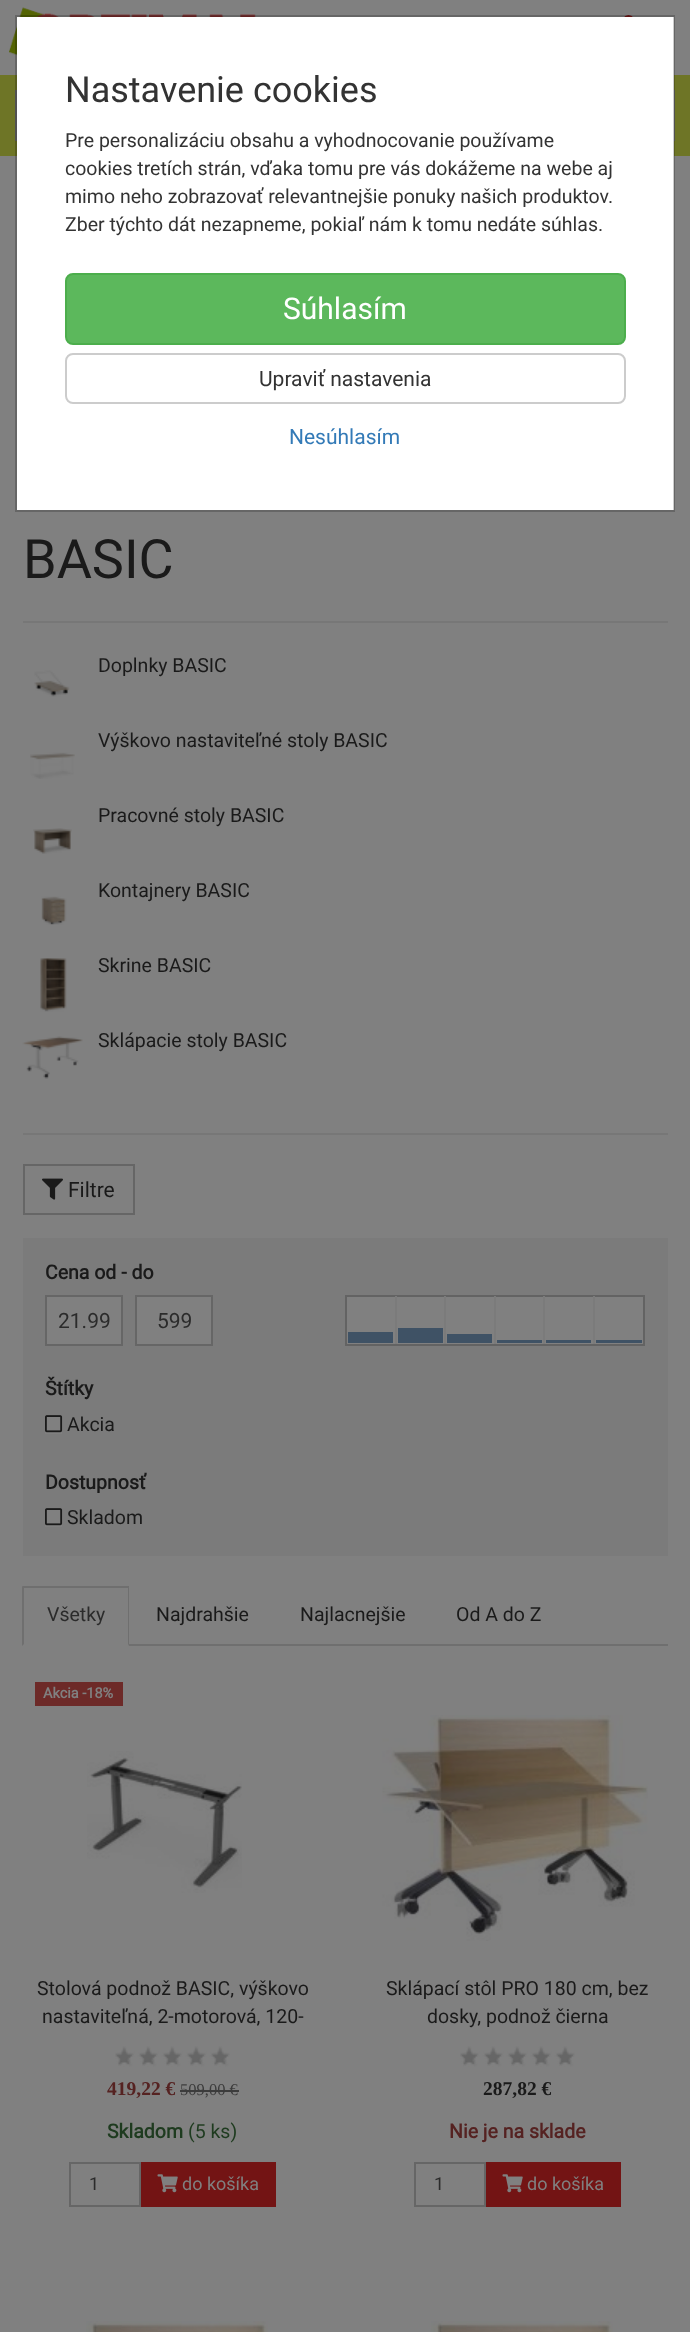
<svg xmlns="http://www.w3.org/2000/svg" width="690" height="2332">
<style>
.a{font:36px Roboto;fill:#333}
.b{font:19.5px Roboto;fill:#333}
.c{font:30px Roboto;fill:#fff}
.d{font:21px Roboto;fill:#333}
.e{font:21px Roboto;fill:#337ab7}
.f{font:54px Roboto;fill:#1a1a1a}
.g{font:19.5px Roboto;fill:#1a1a1a}
.h{font:21px Roboto;fill:#1a1a1a}
.i{font:bold 19.5px Roboto;fill:#1a1a1a}
.j{font:21px Roboto;fill:#2b2b2b}
.k{font:19.5px Roboto;fill:#2b2b2b}
.l{font:bold 14.5px Roboto;fill:#808080}
.m{font:bold 19.5px Liberation Serif;fill:#552221}
.n{font:16.5px Liberation Serif;fill:#3c3c3c}
.o{font:bold 19.5px Roboto;fill:#1e3b1f}
.p{font:19.5px Roboto;fill:#1e3b1f}
.q{font:18px Roboto;fill:#2b2b2b}
.r{font:18px Roboto;fill:#808080}
.s{font:bold 19.5px Liberation Serif;fill:#1a1a1a}
.t{font:bold 19.5px Roboto;fill:#552221}
</style>
<rect width="100%" height="100%" fill="#808080"/>
<image href="1.png" x="9" y="7" width="247" height="49"/>
<ellipse fill="#731414" cx="628.5" cy="25.5" rx="7.5" ry="10.5"/>
<path fill="#6e7526" d="M0 75h690v81H0z"/>
<path fill="none" stroke="#666" stroke-width="2" d="M16 91h559v49H16z"/>
<path fill="none" stroke="#666" stroke-width="2" d="M577 91h97v49H577z"/>
<path fill="#fff" d="M17 17h657v493H17z"/>
<path fill="none" stroke="#00000033" stroke-width="2" d="M16 16h658v495H16z"/>
<rect fill="#5cb85c" stroke="#4cae4c" stroke-width="2" x="66" y="274" width="559" height="70" rx="7"/>
<rect fill="none" stroke="#ccc" stroke-width="2" x="66" y="354" width="559" height="49" rx="7"/>
<path fill="#777" d="M23 621h645v2H23z"/>
<image href="2.png" x="34" y="670" width="36" height="27"/>
<image href="3.png" x="30" y="752" width="45" height="27"/>
<image href="4.png" x="33" y="828" width="39" height="26"/>
<image href="5.png" x="41" y="896" width="26" height="29"/>
<image href="6.png" x="40" y="958" width="27" height="54"/>
<image href="7.png" x="22" y="1036" width="61" height="43"/>
<path fill="#777" d="M23 1133h645v2H23z"/>
<path fill="none" stroke="#666" stroke-width="2" d="M24 1165h110v49H24z"/>
<image href="8.png" x="42" y="1178" width="21" height="22"/>
<path fill="#7b7b7b" d="M23 1238h645v318H23z"/>
<path fill="#808080" stroke="#666" stroke-width="2" d="M46 1296h76v49H46z"/>
<path fill="#808080" stroke="#666" stroke-width="2" d="M136 1296h76v49H136z"/>
<path fill="#808080" stroke="#636363" stroke-width="2" d="M346 1296h298v49H346z"/>
<path fill="#7b7b7b" d="M395 1296h2v48H395z"/>
<path fill="#3f5265" d="M348 1332h45v11H348z"/>
<path fill="#7b7b7b" d="M444 1296h2v48H444z"/>
<path fill="#3f5265" d="M398 1328h45v15H398z"/>
<path fill="#7b7b7b" d="M494 1296h2v48H494z"/>
<path fill="#3f5265" d="M447 1334h45v9H447z"/>
<path fill="#7b7b7b" d="M543 1296h2v48H543z"/>
<path fill="#3f5265" d="M497 1340h45v3H497z"/>
<path fill="#7b7b7b" d="M593 1296h2v48H593z"/>
<path fill="#3f5265" d="M546 1340h45v3H546z"/>
<path fill="#3f5265" d="M596 1340h46v3H596z"/>
<path fill="#808080" d="M45 1415h17v19H45z"/>
<image href="9.png" x="45" y="1415" width="18" height="18"/>
<path fill="#808080" d="M45 1508h17v19H45z"/>
<image href="9.png" x="45" y="1508" width="18" height="18"/>
<path fill="#6f6f6f" d="M129 1644h539v2H129z"/>
<path fill="#6f6f6f" d="M23 1586h106v2H23z"/>
<path fill="#6f6f6f" d="M129 1586v60l-1-2v-57z"/>
<path fill="#6f6f6f" d="M22 1646v-60l2 1v57z"/>
<path fill="#6d2a28" d="M35 1682h88v24H35z"/>
<image href="10.png" x="87" y="1751" width="155" height="142"/>
<image href="11.png" x="115" y="2046" width="115" height="21"/>
<path fill="#3c3c3c" d="M180 2090h59v2H180z"/>
<path fill="none" stroke="#666" stroke-width="2" d="M70 2163h70v43H70z"/>
<path fill="#731414" d="M141 2162h135v45H141z"/>
<image href="12.png" x="157" y="2174" width="21" height="19"/>
<image href="13.png" x="382" y="1715" width="266" height="226"/>
<image href="14.png" x="460" y="2046" width="115" height="21"/>
<path fill="none" stroke="#666" stroke-width="2" d="M415 2163h70v43H415z"/>
<path fill="#731414" d="M486 2162h135v45H486z"/>
<image href="12.png" x="502" y="2174" width="21" height="19"/>
<image href="15.png" x="86" y="2321" width="182" height="11"/>
<image href="16.png" x="431" y="2321" width="182" height="11"/>
<text class="a" x="65" y="102">Nastavenie cookies</text>
<text class="b" x="65" y="147">Pre personalizáciu obsahu a vyhodnocovanie používame</text>
<text class="b" x="65" y="175">cookies tretích strán, vďaka tomu pre vás dokážeme na webe aj</text>
<text class="b" x="65" y="203">mimo neho zobrazovať relevantnejšie ponuky našich produktov.</text>
<text class="b" x="65" y="231">Zber týchto dát nezapneme, pokiaľ nám k tomu nedáte súhlas.</text>
<text class="c" x="283" y="319">Súhlasím</text>
<text class="d" x="259" y="386">Upraviť nastavenia</text>
<text class="e" x="289" y="444">Nesúhlasím</text>
<text class="f" x="23" y="578">BASIC</text>
<text class="g" x="98" y="672">Doplnky BASIC</text>
<text class="g" x="98" y="747">Výškovo nastaviteľné stoly BASIC</text>
<text class="g" x="98" y="822">Pracovné stoly BASIC</text>
<text class="g" x="98" y="897">Kontajnery BASIC</text>
<text class="g" x="98" y="972">Skrine BASIC</text>
<text class="g" x="98" y="1047">Sklápacie stoly BASIC</text>
<text class="h" x="68" y="1197">Filtre</text>
<text class="i" x="45" y="1279">Cena od - do</text>
<text class="j" x="58" y="1328">21.99</text>
<text class="j" x="157" y="1328">599</text>
<text class="i" x="45" y="1395">Štítky</text>
<text class="g" x="67" y="1431">Akcia</text>
<text class="i" x="45" y="1489">Dostupnosť</text>
<text class="g" x="67" y="1524">Skladom</text>
<text class="k" x="47" y="1621">Všetky</text>
<text class="g" x="156" y="1621">Najdrahšie</text>
<text class="g" x="300" y="1621">Najlacnejšie</text>
<text class="g" x="456" y="1621">Od A do Z</text>
<text class="l" x="43" y="1698">Akcia -18%</text>
<text class="g" x="37" y="1995">Stolová podnož BASIC, výškovo</text>
<text class="g" x="42" y="2023">nastaviteľná, 2-motorová, 120-</text>
<text class="m" x="107" y="2095">419,22 €</text>
<text class="n" x="180" y="2095">509,00 €</text>
<text class="o" x="107" y="2138">Skladom</text>
<text class="p" x="188" y="2138">(5 ks)</text>
<text class="q" x="89" y="2190">1</text>
<text class="r" x="182" y="2190">do košíka</text>
<text class="g" x="386" y="1995">Sklápací stôl PRO 180 cm, bez</text>
<text class="g" x="427" y="2023">dosky, podnož čierna</text>
<text class="s" x="483" y="2095">287,82 €</text>
<text class="t" x="449" y="2138">Nie je na sklade</text>
<text class="q" x="434" y="2190">1</text>
<text class="r" x="527" y="2190">do košíka</text>
</svg>
